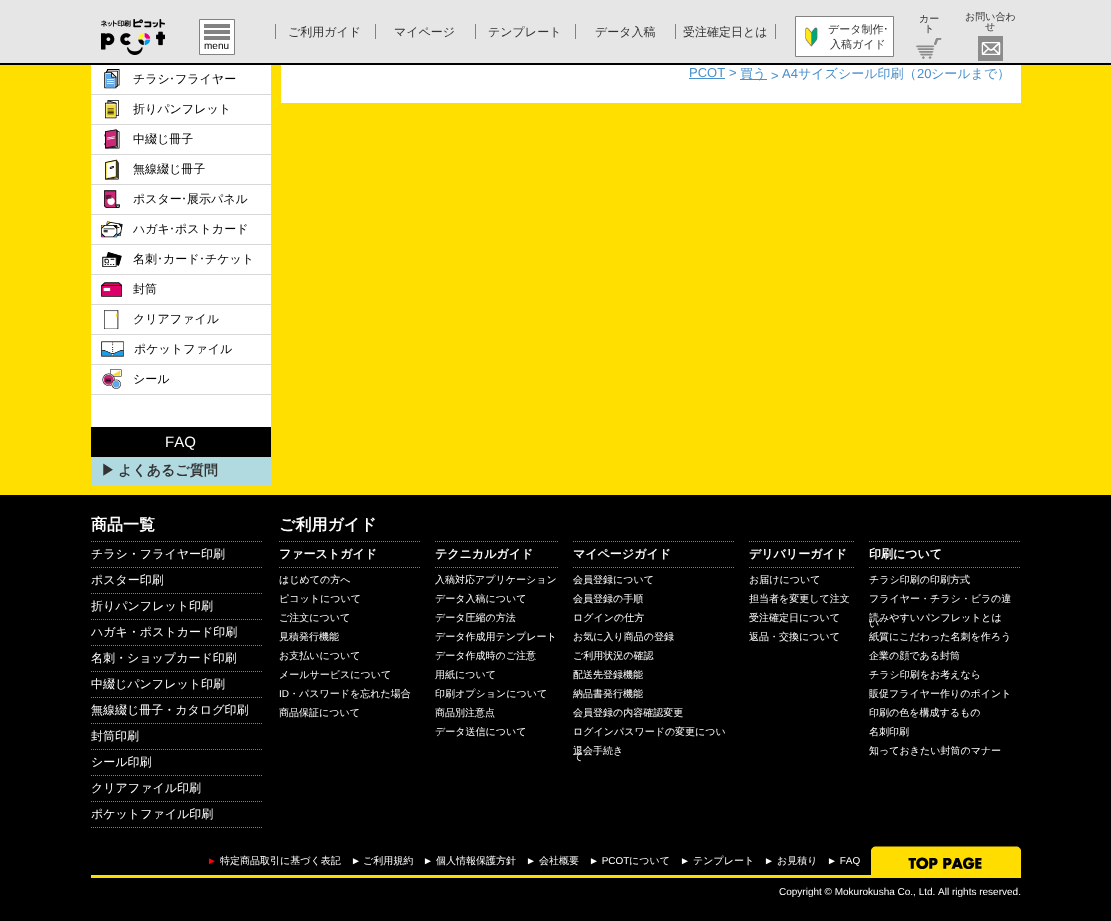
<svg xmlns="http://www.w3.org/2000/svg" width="1111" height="921">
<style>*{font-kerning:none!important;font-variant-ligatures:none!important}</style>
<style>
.a{font:500 12px WenQuanYi Zen Hei;fill:#333}
.b{font:500 11px WenQuanYi Zen Hei;fill:#333}
.c{font:11px IPAPGothic;fill:#333}
.d{font:500 10px WenQuanYi Zen Hei;fill:#333}
.e{font:10px Liberation Sans;fill:#000}
.f{font:500 12px WenQuanYi Zen Hei;fill:#000}
.g{font:12px IPAPGothic;fill:#000}
.h{font:15px Liberation Sans;fill:#fff}
.i{font:bold 14px WenQuanYi Zen Hei;fill:#333}
.j{font:13px Liberation Sans;fill:#488fcc}
.k{font:500 13px WenQuanYi Zen Hei;fill:#488fcc}
.l{font:bold 16px WenQuanYi Zen Hei;fill:#fff}
.m{font:500 12px WenQuanYi Zen Hei;fill:#fff}
.n{font:bold 12px WenQuanYi Zen Hei;fill:#fff}
.o{font:500 10px WenQuanYi Zen Hei;fill:#fff}
.p{font:10px Liberation Sans;fill:#fff}
.q{font:10px Liberation Sans;fill:#f00}
</style>
<rect width="100%" height="100%" fill="#ffdf00"/>
<path fill="#e6e6e6" d="M0 0h1111v63H0z"/>
<path fill="#000" d="M0 63h1111v2H0z"/>
<image href="1.png" x="101" y="19" width="64" height="36"/>
<path fill="#828282" d="M375 24h1v15H375z"/>
<path fill="#828282" d="M275 24h1v15H275z"/>
<path fill="#828282" d="M475 24h1v15H475z"/>
<path fill="#828282" d="M575 24h1v15H575z"/>
<path fill="#828282" d="M675 24h1v15H675z"/>
<path fill="#828282" d="M775 24h1v15H775z"/>
<path fill="#fff" d="M796 17h97v39H796z"/>
<image href="2.png" x="805" y="27" width="13" height="20"/>
<path fill="none" stroke="#828282" d="M795.5 16.5h98v40H795.5z"/>
<image href="3.png" x="915" y="38" width="27" height="21"/>
<image href="4.png" x="978" y="36" width="25" height="25"/>
<path fill="#fff" stroke="#828282" d="M199.5 19.5h35v35H199.5z"/>
<path fill="#828282" d="M204 24h26v4H204z"/>
<path fill="#828282" d="M204 36h26v4H204z"/>
<path fill="#828282" d="M204 30h26v4H204z"/>
<path fill="#fff" d="M91 65h180v362H91z"/>
<path fill="#d8d8d8" d="M91 94h180v1H91z"/>
<image href="5.png" x="104" y="69" width="16" height="20"/>
<path fill="#d8d8d8" d="M91 124h180v1H91z"/>
<image href="6.png" x="105" y="100" width="14" height="19"/>
<path fill="#d8d8d8" d="M91 154h180v1H91z"/>
<image href="7.png" x="104" y="129" width="16" height="20"/>
<path fill="#d8d8d8" d="M91 184h180v1H91z"/>
<image href="8.png" x="105" y="159" width="14" height="21"/>
<path fill="#d8d8d8" d="M91 214h180v1H91z"/>
<image href="9.png" x="104" y="190" width="16" height="18"/>
<path fill="#d8d8d8" d="M91 244h180v1H91z"/>
<image href="10.png" x="101" y="221" width="22" height="17"/>
<path fill="#d8d8d8" d="M91 274h180v1H91z"/>
<image href="11.png" x="102" y="252" width="20" height="15"/>
<path fill="#d8d8d8" d="M91 304h180v1H91z"/>
<image href="12.png" x="101" y="282" width="21" height="15"/>
<path fill="#d8d8d8" d="M91 334h180v1H91z"/>
<image href="13.png" x="104" y="310" width="15" height="19"/>
<path fill="#d8d8d8" d="M91 364h180v1H91z"/>
<image href="14.png" x="101" y="341" width="23" height="16"/>
<path fill="#d8d8d8" d="M91 394h180v1H91z"/>
<image href="15.png" x="102" y="369" width="20" height="20"/>
<path fill="#000" d="M91 427h180v30H91z"/>
<path fill="#b1dae0" d="M91 457h180v28H91z"/>
<path fill="#fff" d="M281 65h740v38H281z"/>
<path fill="#488fcc" d="M689 78h36v1H689z"/>
<path fill="#488fcc" d="M740 79h27v1H740z"/>
<path fill="#000" d="M0 495h1111v426H0z"/>
<path fill="none" stroke="#808080" stroke-dasharray="1 1" d="M91 541.5h172"/>
<path fill="none" stroke="#808080" stroke-dasharray="1 1" d="M91 567.5h172"/>
<path fill="none" stroke="#808080" stroke-dasharray="1 1" d="M91 593.5h172"/>
<path fill="none" stroke="#808080" stroke-dasharray="1 1" d="M91 619.5h172"/>
<path fill="none" stroke="#808080" stroke-dasharray="1 1" d="M91 645.5h172"/>
<path fill="none" stroke="#808080" stroke-dasharray="1 1" d="M91 671.5h172"/>
<path fill="none" stroke="#808080" stroke-dasharray="1 1" d="M91 697.5h172"/>
<path fill="none" stroke="#808080" stroke-dasharray="1 1" d="M91 723.5h172"/>
<path fill="none" stroke="#808080" stroke-dasharray="1 1" d="M91 749.5h172"/>
<path fill="none" stroke="#808080" stroke-dasharray="1 1" d="M91 775.5h172"/>
<path fill="none" stroke="#808080" stroke-dasharray="1 1" d="M91 801.5h172"/>
<path fill="none" stroke="#808080" stroke-dasharray="1 1" d="M91 827.5h172"/>
<path fill="none" stroke="#808080" stroke-dasharray="1 1" d="M279 541.5h142"/>
<path fill="none" stroke="#808080" stroke-dasharray="1 1" d="M279 567.5h142"/>
<path fill="none" stroke="#808080" stroke-dasharray="1 1" d="M435 541.5h124"/>
<path fill="none" stroke="#808080" stroke-dasharray="1 1" d="M435 567.5h124"/>
<path fill="none" stroke="#808080" stroke-dasharray="1 1" d="M573 541.5h162"/>
<path fill="none" stroke="#808080" stroke-dasharray="1 1" d="M573 567.5h162"/>
<path fill="none" stroke="#808080" stroke-dasharray="1 1" d="M749 541.5h106"/>
<path fill="none" stroke="#808080" stroke-dasharray="1 1" d="M749 567.5h106"/>
<path fill="none" stroke="#808080" stroke-dasharray="1 1" d="M869 541.5h152"/>
<path fill="none" stroke="#808080" stroke-dasharray="1 1" d="M869 567.5h152"/>
<path fill="#ffdd02" d="M91 875h930v3H91z"/>
<image href="16.png" x="871" y="846" width="150" height="29"/>
<text class="a" x="288" y="36">ご利用ガイド</text>
<text class="a" x="394" y="36">マイページ</text>
<text class="a" x="488" y="36">テンプレート</text>
<text class="a" x="595" y="36">データ入稿</text>
<text class="a" x="683" y="36">受注確定日とは</text>
<text class="b" x="828" y="33">データ制作</text>
<text class="c" x="883" y="33">･</text>
<text class="b" x="830" y="48">入稿ガイド</text>
<text class="d" x="919" y="22">カー</text>
<text class="d" x="924" y="32">ト</text>
<text class="d" x="965" y="20">お問い合わ</text>
<text class="d" x="985" y="30">せ</text>
<text class="e" x="204" y="49">menu</text>
<text class="f" x="133" y="83">チラシ</text>
<text class="g" x="169" y="83">･</text>
<text class="f" x="175" y="83">フライヤー</text>
<text class="f" x="133" y="113">折りパンフレット</text>
<text class="f" x="133" y="143">中綴じ冊子</text>
<text class="f" x="133" y="173">無線綴じ冊子</text>
<text class="f" x="133" y="203">ポスター</text>
<text class="g" x="181" y="203">･</text>
<text class="f" x="187" y="203">展示パネル</text>
<text class="f" x="133" y="233">ハガキ</text>
<text class="g" x="169" y="233">･</text>
<text class="f" x="175" y="233">ポストカード</text>
<text class="f" x="133" y="263">名刺</text>
<text class="g" x="157" y="263">･</text>
<text class="f" x="163" y="263">カード</text>
<text class="g" x="199" y="263">･</text>
<text class="f" x="205" y="263">チケット</text>
<text class="f" x="133" y="293">封筒</text>
<text class="f" x="133" y="323">クリアファイル</text>
<text class="f" x="134" y="353">ポケットファイル</text>
<text class="f" x="133" y="383">シール</text>
<text class="h" x="165" y="447">FAQ</text>
<text class="i" x="101" y="475">▶︎</text>
<text class="i" x="118" y="475">よくあるご質問</text>
<text class="j" x="689" y="77">PCOT</text>
<text class="j" x="729" y="77">&gt;</text>
<text class="k" x="740" y="78">買う</text>
<text class="j" x="771" y="80">&gt;</text>
<text class="j" x="782" y="78">A4</text>
<text class="k" x="798" y="78">サイズシール印刷（</text>
<text class="j" x="917" y="78">20</text>
<text class="k" x="931" y="78">シールまで）</text>
<text class="l" x="91" y="530">商品一覧</text>
<text class="m" x="91" y="558">チラシ・フライヤー印刷</text>
<text class="m" x="91" y="584">ポスター印刷</text>
<text class="m" x="91" y="610">折りパンフレット印刷</text>
<text class="m" x="91" y="636">ハガキ・ポストカード印刷</text>
<text class="m" x="91" y="662">名刺・ショップカード印刷</text>
<text class="m" x="91" y="688">中綴じパンフレット印刷</text>
<text class="m" x="91" y="714">無線綴じ冊子・カタログ印刷</text>
<text class="m" x="91" y="740">封筒印刷</text>
<text class="m" x="91" y="766">シール印刷</text>
<text class="m" x="91" y="792">クリアファイル印刷</text>
<text class="m" x="91" y="818">ポケットファイル印刷</text>
<text class="l" x="279" y="530">ご利用ガイド</text>
<text class="n" x="279" y="558">ファーストガイド</text>
<text class="o" x="279" y="583">はじめての方へ</text>
<text class="o" x="279" y="602">ピコットについて</text>
<text class="o" x="279" y="621">ご注文について</text>
<text class="o" x="279" y="640">見積発行機能</text>
<text class="o" x="279" y="659">お支払いについて</text>
<text class="o" x="279" y="678">メールサービスについて</text>
<text class="p" x="279" y="697">ID</text>
<text class="o" x="289" y="697">・パスワードを忘れた場合</text>
<text class="o" x="279" y="716">商品保証について</text>
<text class="n" x="435" y="558">テクニカルガイド</text>
<text class="o" x="435" y="583">入稿対応アプリケーション</text>
<text class="o" x="435" y="602">データ入稿について</text>
<text class="o" x="435" y="621">データ圧縮の方法</text>
<text class="o" x="435" y="640">データ作成用テンプレート</text>
<text class="o" x="435" y="659">データ作成時のご注意</text>
<text class="o" x="435" y="678">用紙について</text>
<text class="o" x="435" y="697">印刷オプションについて</text>
<text class="o" x="435" y="716">商品別注意点</text>
<text class="o" x="435" y="735">データ送信について</text>
<text class="n" x="573" y="558">マイページガイド</text>
<text class="o" x="573" y="583">会員登録について</text>
<text class="o" x="573" y="602">会員登録の手順</text>
<text class="o" x="573" y="621">ログインの仕方</text>
<text class="o" x="573" y="640">お気に入り商品の登録</text>
<text class="o" x="573" y="659">ご利用状況の確認</text>
<text class="o" x="573" y="678">配送先登録機能</text>
<text class="o" x="573" y="697">納品書発行機能</text>
<text class="o" x="573" y="716">会員登録の内容確認変更</text>
<text class="o" x="573" y="735">ログインパスワードの変更につい</text>
<text class="o" x="573" y="760">て</text>
<text class="o" x="573" y="754">退会手続き</text>
<text class="n" x="749" y="558">デリバリーガイド</text>
<text class="o" x="749" y="583">お届けについて</text>
<text class="o" x="749" y="602">担当者を変更して注文</text>
<text class="o" x="749" y="621">受注確定日について</text>
<text class="o" x="749" y="640">返品・交換について</text>
<text class="n" x="869" y="558">印刷について</text>
<text class="o" x="869" y="583">チラシ印刷の印刷方式</text>
<text class="o" x="869" y="602">フライヤー・チラシ・ビラの違</text>
<text class="o" x="869" y="627">い</text>
<text class="o" x="869" y="621">読みやすいパンフレットとは</text>
<text class="o" x="869" y="640">紙質にこだわった名刺を作ろう</text>
<text class="o" x="869" y="659">企業の顔である封筒</text>
<text class="o" x="869" y="678">チラシ印刷をお考えなら</text>
<text class="o" x="869" y="697">販促フライヤー作りのポイント</text>
<text class="o" x="869" y="716">印刷の色を構成するもの</text>
<text class="o" x="869" y="735">名刺印刷</text>
<text class="o" x="869" y="754">知っておきたい封筒のマナー</text>
<text class="q" x="207" y="864">►</text>
<text class="o" x="220" y="864">特定商品取引に基づく表記</text>
<text class="p" x="351" y="864">►</text>
<text class="o" x="363" y="864">ご利用規約</text>
<text class="p" x="423" y="864">►</text>
<text class="o" x="436" y="864">個人情報保護方針</text>
<text class="p" x="526" y="864">►</text>
<text class="o" x="539" y="864">会社概要</text>
<text class="p" x="589" y="864">► PCOT</text>
<text class="o" x="629" y="864">について</text>
<text class="p" x="680" y="864">►</text>
<text class="o" x="693" y="864">テンプレート</text>
<text class="p" x="764" y="864">►</text>
<text class="o" x="777" y="864">お見積り</text>
<text class="p" x="827" y="864">► FAQ</text>
<text class="p" x="779" y="895">Copyright © Mokurokusha Co., Ltd. All rights reserved.</text>
</svg>
